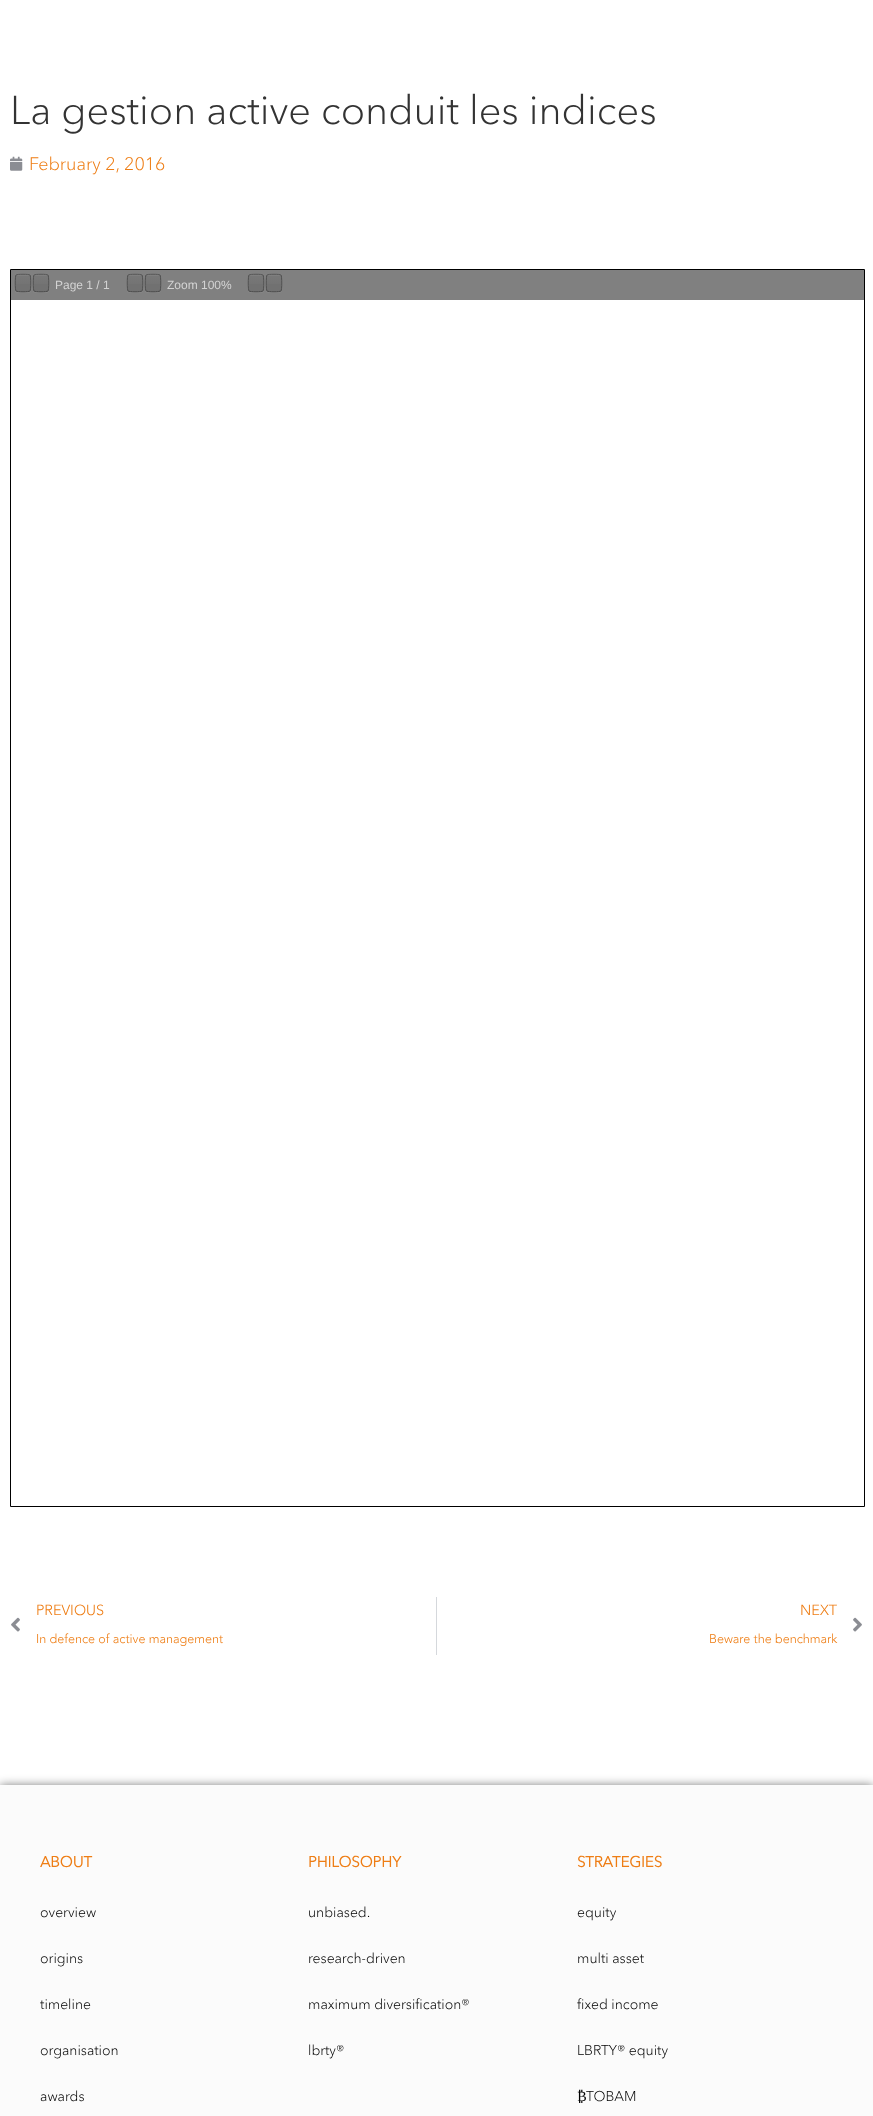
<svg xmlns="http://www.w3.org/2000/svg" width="873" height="2116">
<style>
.a{font:300 40px Avenir Next;fill:#333}
.b{font:300 18px Avenir Next;fill:#ee7d14}
.c{font:12px Liberation Sans;fill:#d3d3d3}
.d{font:300 14.5px 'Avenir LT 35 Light';fill:#ee7d14}
.e{font:300 12.6px 'Avenir LT 35 Light';fill:#ee7d14}
.f{font:bold 15px Avenir Next;fill:#ee7d14}
.g{font:300 14px Avenir Next;fill:#000}
.h{font:14px Liberation Serif;fill:#000}
</style>
<defs>
<linearGradient id="g1" gradientUnits="userSpaceOnUse" x1="23" y1="275" x2="23" y2="291"><stop offset="0" stop-color="#fff" stop-opacity="0.05"/><stop offset="1" stop-color="#fff" stop-opacity="0"/></linearGradient>
<linearGradient id="g2" gradientUnits="userSpaceOnUse" x1="41" y1="275" x2="41" y2="291"><stop offset="0" stop-color="#fff" stop-opacity="0.05"/><stop offset="1" stop-color="#fff" stop-opacity="0"/></linearGradient>
<linearGradient id="g3" gradientUnits="userSpaceOnUse" x1="135" y1="275" x2="135" y2="291"><stop offset="0" stop-color="#fff" stop-opacity="0.05"/><stop offset="1" stop-color="#fff" stop-opacity="0"/></linearGradient>
<linearGradient id="g4" gradientUnits="userSpaceOnUse" x1="153" y1="275" x2="153" y2="291"><stop offset="0" stop-color="#fff" stop-opacity="0.05"/><stop offset="1" stop-color="#fff" stop-opacity="0"/></linearGradient>
<linearGradient id="g5" gradientUnits="userSpaceOnUse" x1="256" y1="275" x2="256" y2="291"><stop offset="0" stop-color="#fff" stop-opacity="0.05"/><stop offset="1" stop-color="#fff" stop-opacity="0"/></linearGradient>
<linearGradient id="g6" gradientUnits="userSpaceOnUse" x1="274" y1="275" x2="274" y2="291"><stop offset="0" stop-color="#fff" stop-opacity="0.05"/><stop offset="1" stop-color="#fff" stop-opacity="0"/></linearGradient>
</defs>
<rect width="100%" height="100%" fill="#fff"/>
<image href="1.png" x="10" y="156" width="13" height="15"/>
<path fill="none" stroke="#000" d="M10.5 269.5h854v1237H10.5z"/>
<path fill="#808080" d="M11 270h853v30H11z"/>
<path fill="#868686" d="M15 290c0 3 1 3 4 3h8c3 0 4 0 4-3c0 1-1 2-2 2h-12c-1 0-2-1-2-2z"/>
<rect fill="#717171" x="16" y="275" width="14" height="16" rx="1"/>
<path fill="url(#g1)" d="M16 275h14v9H16z"/>
<path fill="#7f7f7f" d="M17 275c-.5 0-1 .5-1 1h14c0-.5-.5-1-1-1z"/>
<path fill="none" stroke="#575757" d="M16 275c1-1 13-1 14 0"/>
<path fill="none" stroke="#4f4f4f" d="M30 275c1 1 1 15 0 16"/>
<path fill="none" stroke="#4a4a4a" d="M30 291c-1 1-13 1-14 0"/>
<path fill="none" stroke="#4f4f4f" d="M16 291c-1-1-1-15 0-16"/>
<path fill="#868686" d="M33 290c0 3 1 3 4 3h8c3 0 4 0 4-3c0 1-1 2-2 2h-12c-1 0-2-1-2-2z"/>
<rect fill="#717171" x="34" y="275" width="14" height="16" rx="1"/>
<path fill="url(#g2)" d="M34 275h14v9H34z"/>
<path fill="#7f7f7f" d="M35 275c-.5 0-1 .5-1 1h14c0-.5-.5-1-1-1z"/>
<path fill="none" stroke="#575757" d="M34 275c1-1 13-1 14 0"/>
<path fill="none" stroke="#4f4f4f" d="M48 275c1 1 1 15 0 16"/>
<path fill="none" stroke="#4a4a4a" d="M48 291c-1 1-13 1-14 0"/>
<path fill="none" stroke="#4f4f4f" d="M34 291c-1-1-1-15 0-16"/>
<path fill="#868686" d="M127 290c0 3 1 3 4 3h8c3 0 4 0 4-3c0 1-1 2-2 2h-12c-1 0-2-1-2-2z"/>
<rect fill="#717171" x="128" y="275" width="14" height="16" rx="1"/>
<path fill="url(#g3)" d="M128 275h14v9H128z"/>
<path fill="#7f7f7f" d="M129 275c-.5 0-1 .5-1 1h14c0-.5-.5-1-1-1z"/>
<path fill="none" stroke="#575757" d="M128 275c1-1 13-1 14 0"/>
<path fill="none" stroke="#4f4f4f" d="M142 275c1 1 1 15 0 16"/>
<path fill="none" stroke="#4a4a4a" d="M142 291c-1 1-13 1-14 0"/>
<path fill="none" stroke="#4f4f4f" d="M128 291c-1-1-1-15 0-16"/>
<path fill="#868686" d="M145 290c0 3 1 3 4 3h8c3 0 4 0 4-3c0 1-1 2-2 2h-12c-1 0-2-1-2-2z"/>
<rect fill="#717171" x="146" y="275" width="14" height="16" rx="1"/>
<path fill="url(#g4)" d="M146 275h14v9H146z"/>
<path fill="#7f7f7f" d="M147 275c-.5 0-1 .5-1 1h14c0-.5-.5-1-1-1z"/>
<path fill="none" stroke="#575757" d="M146 275c1-1 13-1 14 0"/>
<path fill="none" stroke="#4f4f4f" d="M160 275c1 1 1 15 0 16"/>
<path fill="none" stroke="#4a4a4a" d="M160 291c-1 1-13 1-14 0"/>
<path fill="none" stroke="#4f4f4f" d="M146 291c-1-1-1-15 0-16"/>
<path fill="#868686" d="M248 290c0 3 1 3 4 3h8c3 0 4 0 4-3c0 1-1 2-2 2h-12c-1 0-2-1-2-2z"/>
<rect fill="#717171" x="249" y="275" width="14" height="16" rx="1"/>
<path fill="url(#g5)" d="M249 275h14v9H249z"/>
<path fill="#7f7f7f" d="M250 275c-.5 0-1 .5-1 1h14c0-.5-.5-1-1-1z"/>
<path fill="none" stroke="#575757" d="M249 275c1-1 13-1 14 0"/>
<path fill="none" stroke="#4f4f4f" d="M263 275c1 1 1 15 0 16"/>
<path fill="none" stroke="#4a4a4a" d="M263 291c-1 1-13 1-14 0"/>
<path fill="none" stroke="#4f4f4f" d="M249 291c-1-1-1-15 0-16"/>
<path fill="#868686" d="M266 290c0 3 1 3 4 3h8c3 0 4 0 4-3c0 1-1 2-2 2h-12c-1 0-2-1-2-2z"/>
<rect fill="#717171" x="267" y="275" width="14" height="16" rx="1"/>
<path fill="url(#g6)" d="M267 275h14v9H267z"/>
<path fill="#7f7f7f" d="M268 275c-.5 0-1 .5-1 1h14c0-.5-.5-1-1-1z"/>
<path fill="none" stroke="#575757" d="M267 275c1-1 13-1 14 0"/>
<path fill="none" stroke="#4f4f4f" d="M281 275c1 1 1 15 0 16"/>
<path fill="none" stroke="#4a4a4a" d="M281 291c-1 1-13 1-14 0"/>
<path fill="none" stroke="#4f4f4f" d="M267 291c-1-1-1-15 0-16"/>
<image href="2.png" x="11" y="1617" width="9" height="15"/>
<path fill="#d5d8dc" d="M436 1597h1v58H436z"/>
<image href="3.png" x="853" y="1617" width="9" height="15"/>
<path fill="#00000080" filter="blur(5px)" d="M0 1785h873v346H0z"/>
<path fill="#fbfbfb" d="M0 1785h873v331H0z"/>
<text class="a" x="10" y="124">La gestion active conduit les indices</text>
<text class="b" x="29" y="170">February 2, 2016</text>
<text class="c" x="55" y="289">Page 1 / 1</text>
<text class="c" x="167" y="289">Zoom 100%</text>
<text class="d" x="36" y="1615">PREVIOUS</text>
<text class="e" x="36" y="1643">In defence of active management</text>
<text class="d" x="800" y="1615">NEXT</text>
<text class="e" x="709" y="1643">Beware the benchmark</text>
<text class="f" x="40" y="1867">ABOUT</text>
<text class="g" x="40" y="1917">overview</text>
<text class="g" x="40" y="1963">origins</text>
<text class="g" x="40" y="2009">timeline</text>
<text class="g" x="40" y="2055">organisation</text>
<text class="g" x="40" y="2101">awards</text>
<text class="f" x="308" y="1867">PHILOSOPHY</text>
<text class="g" x="308" y="1917">unbiased.</text>
<text class="g" x="308" y="1963">research-driven</text>
<text class="g" x="308" y="2009">maximum diversification®</text>
<text class="g" x="308" y="2055">lbrty®</text>
<text class="f" x="577" y="1867">STRATEGIES</text>
<text class="g" x="577" y="1917">equity</text>
<text class="g" x="577" y="1963">multi asset</text>
<text class="g" x="577" y="2009">fixed income</text>
<text class="g" x="577" y="2055">LBRTY® equity</text>
<text class="h" x="577" y="2101">₿</text>
<text class="g" x="586" y="2101">TOBAM</text>
</svg>
